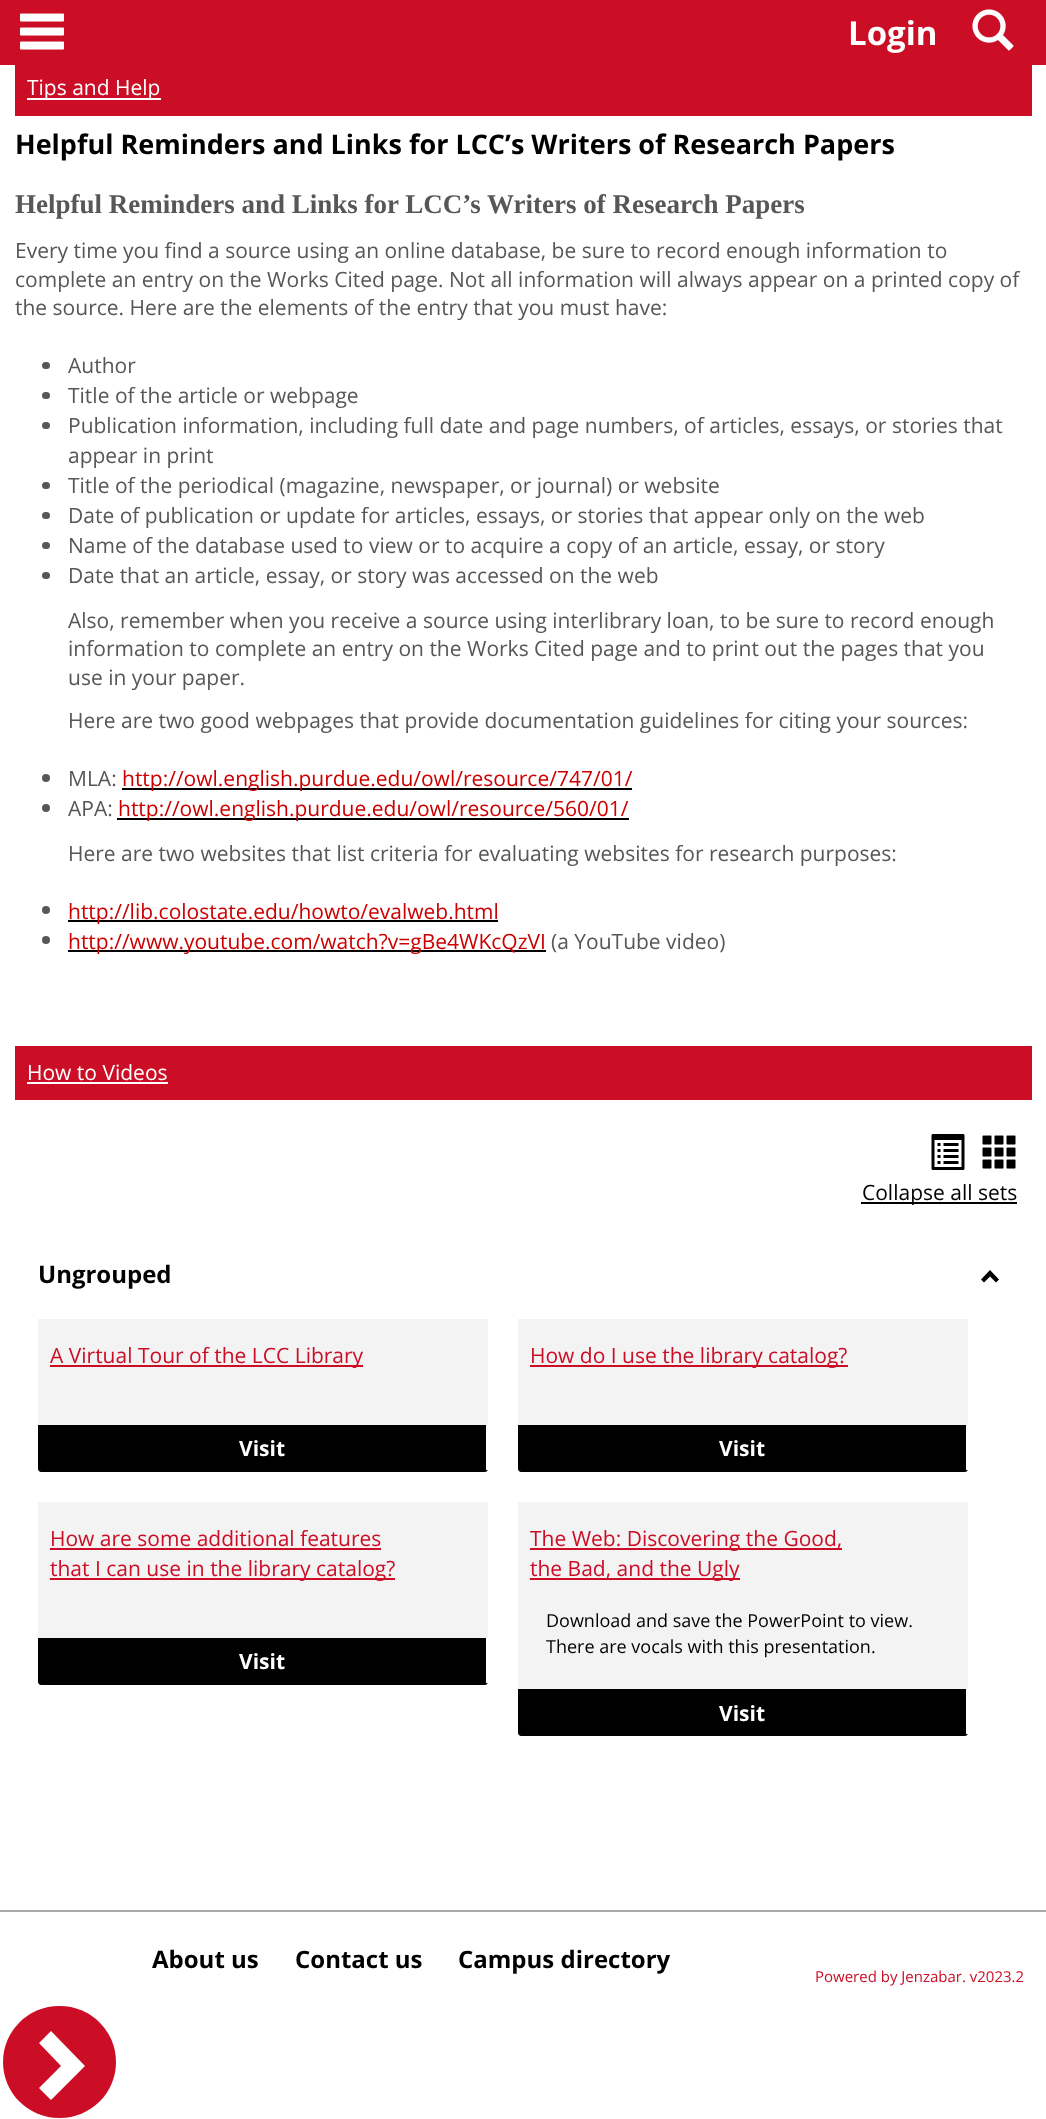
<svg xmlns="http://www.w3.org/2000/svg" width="1046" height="2119">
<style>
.a{font:bold 33px Open Sans;fill:#fff}
.b{font:21px Open Sans;fill:#fff}
.c{font:bold 27px Open Sans;fill:#000}
.d{font:bold 27px Liberation Serif;fill:#575757}
.e{font:21px Open Sans;fill:#575757}
.f{font:21px Open Sans;fill:#c00}
.g{font:21px Open Sans;fill:#000}
.h{font:bold 24px Open Sans;fill:#000}
.i{font:21px Open Sans;fill:#cb0e26}
.j{font:bold 21px Open Sans;fill:#fff}
.k{font:18px Open Sans;fill:#000}
.l{font:15px Open Sans;fill:#cb0e26}
</style>
<rect width="100%" height="100%" fill="#fff"/>
<path fill="#cb0e26" d="M0 0h1046v65H0z"/>
<image href="1.png" x="20" y="13" width="44" height="37"/>
<image href="2.png" x="972" y="9" width="42" height="42"/>
<path fill="#cb0e26" d="M15 65h1017v51H15z"/>
<path fill="#fff" d="M27 98h134v2H27z"/>
<rect fill="#575757" x="42" y="362" width="8" height="7" rx="3.5"/>
<rect fill="#575757" x="42" y="392" width="8" height="7" rx="3.5"/>
<rect fill="#575757" x="42" y="422" width="8" height="7" rx="3.5"/>
<rect fill="#575757" x="42" y="482" width="8" height="7" rx="3.5"/>
<rect fill="#575757" x="42" y="512" width="8" height="7" rx="3.5"/>
<rect fill="#575757" x="42" y="542" width="8" height="7" rx="3.5"/>
<rect fill="#575757" x="42" y="572" width="8" height="7" rx="3.5"/>
<circle fill="#575757" cx="46" cy="778" r="4"/>
<path fill="#000" d="M122 788h510v2H122z"/>
<circle fill="#575757" cx="46" cy="808" r="4"/>
<path fill="#000" d="M117 818h512v2H117z"/>
<circle fill="#575757" cx="46" cy="910" r="4"/>
<path fill="#000" d="M68 920h430v2H68z"/>
<circle fill="#575757" cx="46" cy="940" r="4"/>
<path fill="#000" d="M68 950h478v2H68z"/>
<path fill="#cb0e26" d="M15 1046h1017v54H15z"/>
<path fill="#fff" d="M27 1082h141v2H27z"/>
<image href="3.png" x="931" y="1134" width="34" height="36"/>
<image href="4.png" x="982" y="1135" width="34" height="34"/>
<path fill="#000" d="M861 1202h156v2H861z"/>
<path fill="#000" d="M996 1282.5l-6-6l-6 6l-3-3l9-9.5l9 9.5z"/>
<path fill="#f3f3f3" d="M38 1319h450v150c0 1.5-1.5 3-3 3h-444c-1.5 0-3-1.5-3-3z"/>
<path fill="#cb0e26" d="M50 1365h313v2H50z"/>
<path fill="#000" d="M38 1425h450v44c0 1.5-1.5 3-3 3h-444c-1.5 0-3-1.5-3-3z"/>
<path fill="#fff" d="M486 1425h2v45H486z"/>
<path fill="#f3f3f3" d="M518 1319h450v150c0 1.5-1.5 3-3 3h-444c-1.5 0-3-1.5-3-3z"/>
<path fill="#cb0e26" d="M530 1365h318v2H530z"/>
<path fill="#000" d="M518 1425h450v44c0 1.5-1.5 3-3 3h-444c-1.5 0-3-1.5-3-3z"/>
<path fill="#fff" d="M966 1425h2v45H966z"/>
<path fill="#f3f3f3" d="M38 1502h450v180c0 1.5-1.5 3-3 3h-444c-1.5 0-3-1.5-3-3z"/>
<path fill="#cb0e26" d="M50 1548h331v2H50z"/>
<path fill="#cb0e26" d="M50 1578h345v2H50z"/>
<path fill="#000" d="M38 1638h450v44c0 1.5-1.5 3-3 3h-444c-1.5 0-3-1.5-3-3z"/>
<path fill="#fff" d="M486 1638h2v45H486z"/>
<path fill="#f3f3f3" d="M518 1502h450v231c0 1.5-1.5 3-3 3h-444c-1.5 0-3-1.5-3-3z"/>
<path fill="#cb0e26" d="M530 1548h312v2H530z"/>
<path fill="#cb0e26" d="M530 1578h210v2H530z"/>
<path fill="#000" d="M518 1689h450v44c0 1.5-1.5 3-3 3h-444c-1.5 0-3-1.5-3-3z"/>
<path fill="#fff" d="M966 1689h2v45H966z"/>
<rect fill="#cb0e26" x="3" y="2006" width="113" height="112" rx="56"/>
<path fill="#fff" d="M51 2100l-12-12l22-22l-22-23l12-12l34 35z"/>
<path fill="#a9a9a9" d="M0 1910h1046v2H0z"/>
<text class="a" x="848" y="45">Login</text>
<text class="b" x="27" y="95">Tips and Help</text>
<text class="c" x="15" y="154">Helpful Reminders and Links for LCC’s Writers of Research Papers</text>
<text class="d" x="15" y="213">Helpful Reminders and Links for LCC’s Writers of Research Papers</text>
<text class="e" x="15" y="258">Every time you find a source using an online database, be sure to record enough information to</text>
<text class="e" x="15" y="287">complete an entry on the Works Cited page. Not all information will always appear on a printed copy of</text>
<text class="e" x="15" y="315">the source. Here are the elements of the entry that you must have:</text>
<text class="e" x="68" y="373">Author</text>
<text class="e" x="68" y="403">Title of the article or webpage</text>
<text class="e" x="68" y="433">Publication information, including full date and page numbers, of articles, essays, or stories that</text>
<text class="e" x="68" y="463">appear in print</text>
<text class="e" x="68" y="493">Title of the periodical (magazine, newspaper, or journal) or website</text>
<text class="e" x="68" y="523">Date of publication or update for articles, essays, or stories that appear only on the web</text>
<text class="e" x="68" y="553">Name of the database used to view or to acquire a copy of an article, essay, or story</text>
<text class="e" x="68" y="583">Date that an article, essay, or story was accessed on the web</text>
<text class="e" x="68" y="628">Also, remember when you receive a source using interlibrary loan, to be sure to record enough</text>
<text class="e" x="68" y="656">information to complete an entry on the Works Cited page and to print out the pages that you</text>
<text class="e" x="68" y="685">use in your paper.</text>
<text class="e" x="68" y="728">Here are two good webpages that provide documentation guidelines for citing your sources:</text>
<text class="e" x="68" y="786">MLA:</text>
<text class="f" x="122" y="786">http://owl.english.purdue.edu/owl/resource/747/01/</text>
<text class="e" x="68" y="816">APA:</text>
<text class="f" x="118" y="816">http://owl.english.purdue.edu/owl/resource/560/01/</text>
<text class="e" x="68" y="861">Here are two websites that list criteria for evaluating websites for research purposes:</text>
<text class="f" x="68" y="919">http://lib.colostate.edu/howto/evalweb.html</text>
<text class="f" x="68" y="949">http://www.youtube.com/watch?v=gBe4WKcQzVI</text>
<text class="e" x="551" y="949">(a YouTube video)</text>
<text class="b" x="27" y="1080">How to Videos</text>
<text class="g" x="862" y="1200">Collapse all sets</text>
<text class="h" x="38" y="1283">Ungrouped</text>
<text class="i" x="50" y="1363">A Virtual Tour of the LCC Library</text>
<text class="j" x="239" y="1456">Visit</text>
<text class="i" x="530" y="1363">How do I use the library catalog?</text>
<text class="j" x="719" y="1456">Visit</text>
<text class="i" x="50" y="1546">How are some additional features</text>
<text class="i" x="50" y="1576">that I can use in the library catalog?</text>
<text class="j" x="239" y="1669">Visit</text>
<text class="i" x="530" y="1546">The Web: Discovering the Good,</text>
<text class="i" x="530" y="1576">the Bad, and the Ugly</text>
<text class="k" x="546" y="1627">Download and save the PowerPoint to view.</text>
<text class="k" x="546" y="1653">There are vocals with this presentation.</text>
<text class="j" x="719" y="1721">Visit</text>
<text class="h" x="152" y="1968">About us</text>
<text class="h" x="295" y="1968">Contact us</text>
<text class="h" x="458" y="1968">Campus directory</text>
<text class="l" x="815" y="1982">Powered by Jenzabar. v2023.2</text>
</svg>
